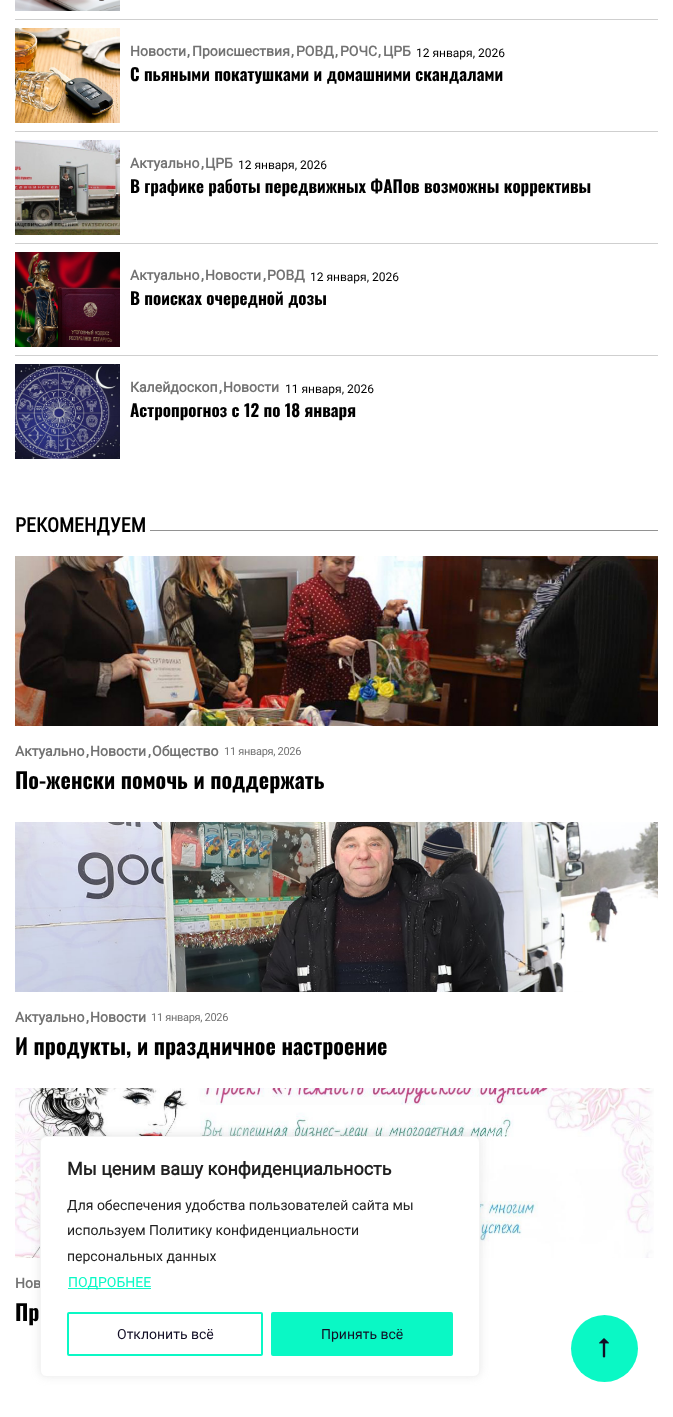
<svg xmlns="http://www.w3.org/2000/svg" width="673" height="1417">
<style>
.a{font:bold 14px Roboto;fill:#727272}
.b{font:12px Roboto;fill:#000}
.c{font:bold 17px Oswald;fill:#000}
.d{font:bold 20px Roboto Condensed;fill:#000}
.e{font:11px Roboto;letter-spacing:-0.3px;fill:#727272}
.f{font:bold 22px Oswald;fill:#000}
.g{font:bold 18px Roboto;fill:#212121}
.h{font:14px Roboto;fill:#212121}
.i{font:14px Roboto;fill:#0af8c5}
.j{font:14px Roboto;fill:#130f26}
</style>
<rect width="100%" height="100%" fill="#fff"/>
<path fill="#cfcfcf" d="M15 19h643v1H15z"/>
<image href="1.png" x="15" y="0" width="105" height="11"/>
<path fill="#cfcfcf" d="M15 131h643v1H15z"/>
<image href="2.png" x="15" y="28" width="105" height="95"/>
<path fill="#cfcfcf" d="M15 243h643v1H15z"/>
<image href="3.png" x="15" y="140" width="105" height="95"/>
<path fill="#cfcfcf" d="M15 355h643v1H15z"/>
<image href="4.png" x="15" y="252" width="105" height="95"/>
<image href="5.png" x="15" y="364" width="105" height="95"/>
<path fill="#929292" d="M150 530h508v1H150z"/>
<image href="6.png" x="15" y="556" width="643" height="170"/>
<image href="7.png" x="15" y="822" width="643" height="170"/>
<image href="8.png" x="15" y="1088" width="639" height="170"/>
<rect fill="#acabab4d" filter="blur(5px)" x="40" y="1135" width="440" height="241" rx="6"/>
<circle fill="#0af8c5" cx="604.5" cy="1348.5" r="33.5"/>
<image href="9.png" x="599" y="1338" width="10" height="20"/>
<text class="a" x="130" y="56">Новости</text>
<text class="a" x="187" y="56">,</text>
<text class="a" x="192" y="56">Происшествия</text>
<text class="a" x="291" y="56">,</text>
<text class="a" x="296" y="56">РОВД</text>
<text class="a" x="335" y="56">,</text>
<text class="a" x="340" y="56">РОЧС</text>
<text class="a" x="378" y="56">,</text>
<text class="a" x="383" y="56">ЦРБ</text>
<text class="b" x="416" y="57">12 января, 2026</text>
<text class="c" x="130" y="81">С пьяными покатушками и домашними скандалами</text>
<text class="a" x="130" y="168">Актуально</text>
<text class="a" x="201" y="168">,</text>
<text class="a" x="205" y="168">ЦРБ</text>
<text class="b" x="238" y="169">12 января, 2026</text>
<text class="c" x="130" y="193">В графике работы передвижных ФАПов возможны коррективы</text>
<text class="a" x="130" y="280">Актуально</text>
<text class="a" x="201" y="280">,</text>
<text class="a" x="205" y="280">Новости</text>
<text class="a" x="263" y="280">,</text>
<text class="a" x="267" y="280">РОВД</text>
<text class="b" x="310" y="281">12 января, 2026</text>
<text class="c" x="130" y="305">В поисках очередной дозы</text>
<text class="a" x="130" y="392">Калейдоскоп</text>
<text class="a" x="219" y="392">,</text>
<text class="a" x="223" y="392">Новости</text>
<text class="b" x="285" y="393">11 января, 2026</text>
<text class="c" x="130" y="417">Астропрогноз с 12 по 18 января</text>
<text class="d" x="15" y="532">РЕКОМЕНДУЕМ</text>
<text class="a" x="15" y="756">Актуально</text>
<text class="a" x="86" y="756">,</text>
<text class="a" x="90" y="756">Новости</text>
<text class="a" x="148" y="756">,</text>
<text class="a" x="152" y="756">Общество</text>
<text class="e" x="224" y="755">11 января, 2026</text>
<text class="f" x="15" y="789">По-женски помочь и поддержать</text>
<text class="a" x="15" y="1022">Актуально</text>
<text class="a" x="86" y="1022">,</text>
<text class="a" x="90" y="1022">Новости</text>
<text class="e" x="151" y="1021">11 января, 2026</text>
<text class="f" x="15" y="1055">И продукты, и праздничное настроение</text>
<text class="a" x="15" y="1288">Нов</text>
<text class="f" x="15" y="1321">Пр</text>
<rect fill="#fff" stroke="#f4f4f4" x="40.5" y="1136.5" width="439" height="240" rx="5.5"/>
<text class="g" x="67" y="1175">Мы ценим вашу конфиденциальность</text>
<text class="h" x="67" y="1210">Для обеспечения удобства пользователей сайта мы</text>
<text class="h" x="67" y="1235">используем Политику конфиденциальности</text>
<text class="h" x="67" y="1261">персональных данных</text>
<path fill="#0af8c5" d="M68 1288h83v1H68z"/>
<text class="i" x="68" y="1287">ПОДРОБНЕЕ</text>
<rect fill="none" stroke="#0af8c5" stroke-width="2" x="68" y="1313" width="194" height="42" rx="1"/>
<text class="j" x="117" y="1339">Отклонить всё</text>
<rect fill="#0af8c5" stroke="#0af8c5" stroke-width="2" x="272" y="1313" width="180" height="42" rx="1"/>
<text class="j" x="321" y="1339">Принять всё</text>
</svg>
